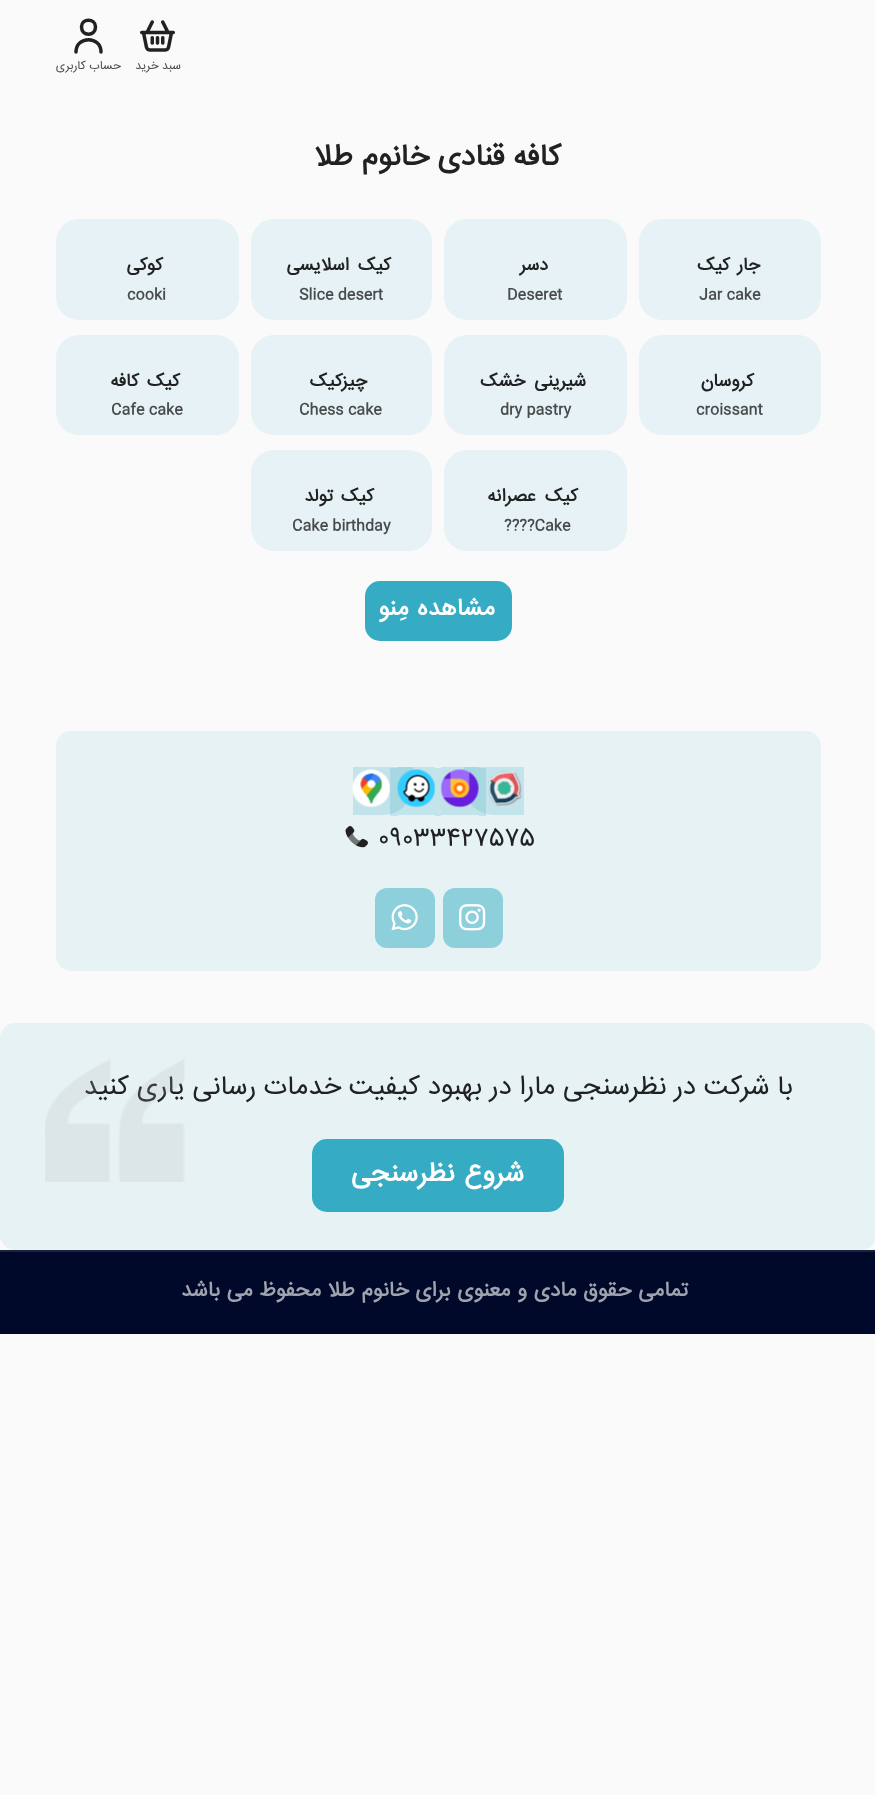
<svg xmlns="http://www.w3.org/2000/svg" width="875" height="1795">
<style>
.a{font:12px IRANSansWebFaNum;direction:rtl;fill:#484b4b}
.b{font:bold 30px IRANSansWebFaNum;direction:rtl;fill:#212121}
.c{font:bold 18px IRANSansWebFaNum;letter-spacing:-0.4px;direction:rtl;fill:#212121}
.d{font:bold 15px IRANSansWebFaNum;fill:#484b4b}
.e{font:bold 24px IRANSansWebFaNum;letter-spacing:-0.1px;direction:rtl;fill:#fff}
.f{font:24px IRANSansWebFaNum;fill:#212121}
.g{font:27px IRANSansWebFaNum;direction:rtl;fill:#212121}
.h{font:bold 27px IRANSansWebFaNum;letter-spacing:-0.1px;direction:rtl;fill:#fff}
.i{font:bold 21px IRANSansWebFaNum;letter-spacing:-0.15px;direction:rtl;fill:#9ea3ae}
</style>
<rect width="100%" height="100%" fill="#fafafa"/>
<image href="1.png" x="140" y="20" width="35" height="32"/>
<path fill="none" stroke="#212121" stroke-width="3.5" stroke-linecap="round" stroke-linejoin="round" d="M76 52c0-16.5 25-16.5 25 0m-5.5-25c0 9.5-14 9.5-14 0c0-9 14-9 14 0z"/>
<rect fill="#e6f2f5" x="639" y="219" width="182" height="101" rx="23"/>
<rect fill="#e6f2f5" x="444" y="219" width="183" height="101" rx="23"/>
<rect fill="#e6f2f5" x="251" y="219" width="181" height="101" rx="23"/>
<rect fill="#e6f2f5" x="56" y="219" width="183" height="101" rx="23"/>
<rect fill="#e6f2f5" x="639" y="335" width="182" height="100" rx="23"/>
<rect fill="#e6f2f5" x="444" y="335" width="183" height="100" rx="23"/>
<rect fill="#e6f2f5" x="251" y="335" width="181" height="100" rx="23"/>
<rect fill="#e6f2f5" x="56" y="335" width="183" height="100" rx="23"/>
<rect fill="#e6f2f5" x="444" y="450" width="183" height="101" rx="23"/>
<rect fill="#e6f2f5" x="251" y="450" width="181" height="101" rx="23"/>
<rect fill="#36acc4" stroke="#36acc4" stroke-width="2" x="366" y="582" width="145" height="58" rx="14"/>
<rect fill="#e6f2f4" x="56" y="731" width="765" height="240" rx="15"/>
<path fill="#c3e4ea" d="M464 767h60v48h-30c-16.5 0-30-13.5-30-30z"/>
<path fill="#36acc433" d="M479 768h7v48H479z"/>
<path fill="#36acc433" d="M441 767h38v48H441z"/>
<path fill="#c3e4ea" d="M435 768h6v48H435z"/>
<path fill="#c3e4ea" d="M398 767h37v48H398z"/>
<path fill="#c3e4ea" d="M390 768h8v48H390z"/>
<path fill="#36acc433" d="M353 767h60v18c0 16.5-13.5 30-30 30h-30z"/>
<image href="2.png" x="488" y="771" width="34" height="35"/>
<image href="3.png" x="440" y="769" width="39" height="39"/>
<image href="4.png" x="397" y="769" width="39" height="39"/>
<image href="5.png" x="352" y="769" width="39" height="39"/>
<image href="6.png" x="345" y="826" width="23" height="22"/>
<rect fill="#8ecfdc" x="443" y="888" width="60" height="60" rx="12"/>
<image href="7.png" x="459" y="904" width="27" height="27"/>
<rect fill="#8ecfdc" x="375" y="888" width="60" height="60" rx="12"/>
<image href="8.png" x="391" y="904" width="27" height="27"/>
<rect fill="#e6f2f4" y="1023" width="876" height="227" rx="15"/>
<rect fill="#36acc4" stroke="#36acc4" stroke-width="2" x="313" y="1140" width="250" height="71" rx="14"/>
<path fill="#000929" d="M0 1252h875v82H0z"/>
<path fill="#1a223e" d="M0 1250h875v2H0z"/>
<text class="a" x="181" y="69">سبد خرید</text>
<text class="a" x="121" y="69">حساب کاربری</text>
<text class="b" x="561" y="165">کافه قنادی خانوم طلا</text>
<text class="c" x="760" y="270" word-spacing="2">جار کیک</text>
<text class="d" x="699" y="299">Jar cake</text>
<text class="c" x="548" y="270">دسر</text>
<text class="d" x="507" y="299">Deseret</text>
<text class="c" x="391" y="270" word-spacing="4">کیک اسلایسی</text>
<text class="d" x="299" y="299">Slice desert</text>
<text class="c" x="163" y="270">کوکی</text>
<text class="d" x="127" y="299">cooki</text>
<text class="c" x="754" y="386">کروسان</text>
<text class="d" x="696" y="414">croissant</text>
<text class="c" x="586" y="386" word-spacing="4">شیرینی خشک</text>
<text class="d" x="500" y="414">dry pastry</text>
<text class="c" x="367" y="386">چیز‌کیک</text>
<text class="d" x="299" y="414">Chess cake</text>
<text class="c" x="180" y="386" word-spacing="3">کیک کافه</text>
<text class="d" x="111" y="414">Cafe cake</text>
<text class="c" x="578" y="501" word-spacing="4">کیک عصرانه</text>
<text class="d" x="504" y="530">????Cake</text>
<text class="c" x="374" y="501" word-spacing="3">کیک تولد</text>
<text class="d" x="292" y="530">Cake birthday</text>
<text class="e" x="495" y="615" word-spacing="2">مشاهده مِنو</text>
<text class="f" x="378" y="845">09033427575</text>
<text class="g" x="793" y="1094">با شرکت در نظرسنجی مارا در بهبود کیفیت خدمات رسانی یاری کنید</text>
<image href="9.png" x="45" y="1059" width="140" height="123"/>
<text class="h" x="524" y="1181" word-spacing="2">شروع نظرسنجی</text>
<text class="i" x="688" y="1296" word-spacing="0.75">تمامی حقوق مادی و معنوی برای خانوم طلا محفوظ می باشد</text>
</svg>
